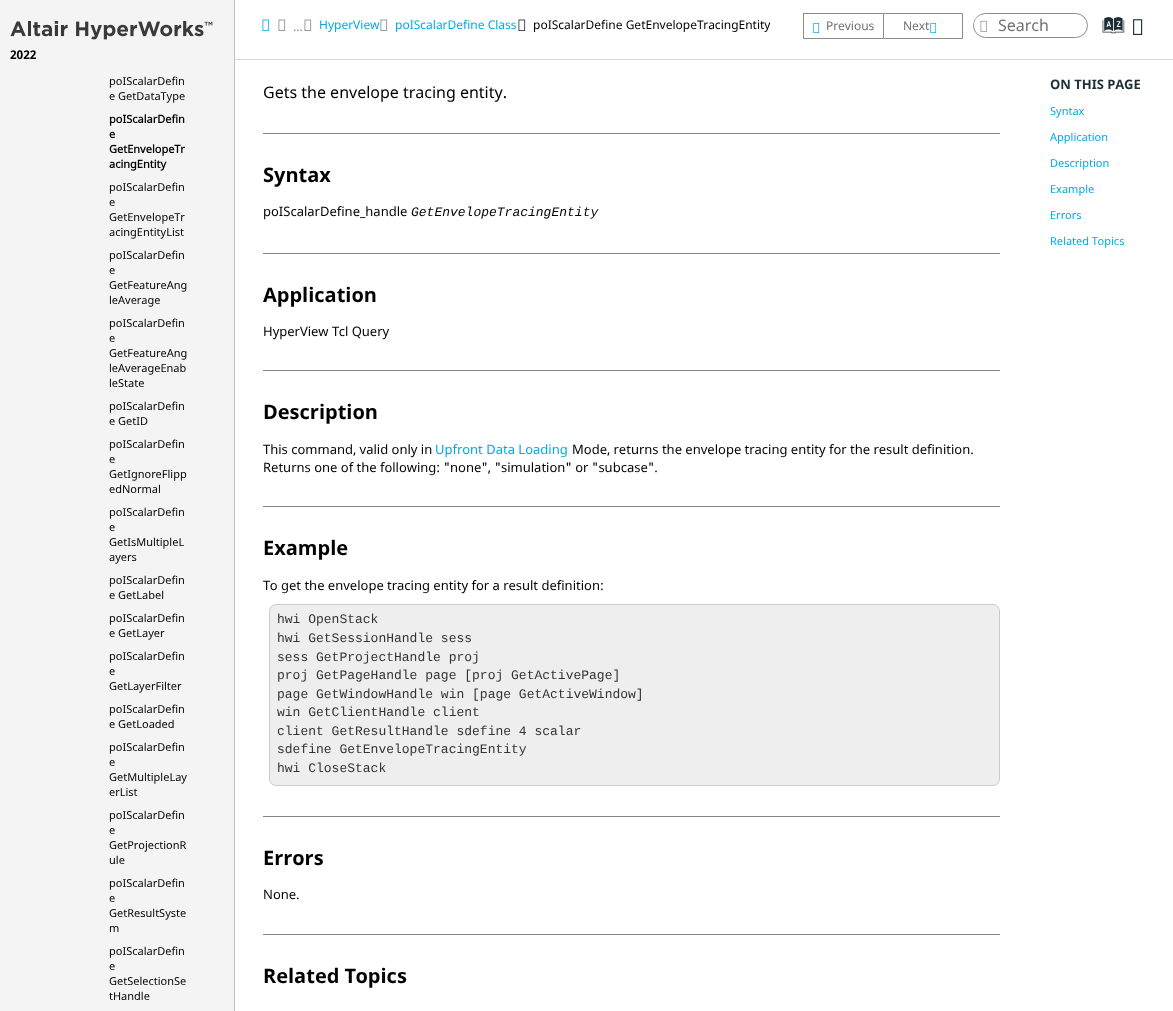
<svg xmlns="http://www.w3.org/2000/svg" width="1173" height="1011">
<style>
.a{font:bold 12px Noto Sans;fill:#000}
.b{font:11px Noto Sans;fill:#000}
.c{font:bold 11px 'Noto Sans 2';fill:#000}
.d{font:12px Noto Sans;fill:#85898d}
.e{font:12px Noto Sans;fill:#00aae6}
.f{font:12px Noto Sans;fill:#000}
.g{font:12px Noto Sans;fill:#707070}
.h{font:16px Noto Sans;fill:#707070}
.i{font:23px Oxygen;fill:#1d2e38}
.j{font:16px Noto Sans;fill:#000}
.k{font:bold 20px Noto Sans;fill:#000}
.l{font:13px Noto Sans;fill:#000}
.m{font:italic 13px Liberation Mono;fill:#000}
.n{font:13px Noto Sans;fill:#00aae6}
.o{font:13px Liberation Mono;fill:#333}
.p{font:bold 13px Noto Sans;fill:#1d2e38}
.q{font:11px Noto Sans;fill:#00aae6}
</style>
<rect width="100%" height="100%" fill="#fff"/>
<path fill="#f4f4f4" d="M0 0h234v1011H0z"/>
<path fill="#c0c0c0" d="M234 0h1v1011H234z"/>
<image href="1.png" x="10" y="21" width="203" height="19"/>
<path fill="#d8d8d8" d="M235 59h938v1H235z"/>
<image href="2.png" x="262" y="19" width="8" height="12"/>
<image href="3.png" x="278" y="19" width="8" height="12"/>
<image href="3.png" x="304" y="19" width="8" height="12"/>
<image href="3.png" x="380" y="19" width="8" height="12"/>
<image href="4.png" x="518" y="19" width="8" height="12"/>
<path fill="#8b8b8b" d="M803 13h80v1H803z"/>
<path fill="#8b8b8b" d="M803 38h80v1H803z"/>
<path fill="#8b8b8b" d="M803 13h1v26H803z"/>
<image href="5.png" x="813" y="23" width="7" height="10"/>
<path fill="none" stroke="#8b8b8b" d="M883.5 13.5h79v25H883.5z"/>
<image href="5.png" x="930" y="23" width="7" height="10"/>
<rect fill="none" stroke="#8b8b8b" x="973.5" y="13.5" width="114" height="24" rx="12"/>
<rect fill="#fff" x="974" y="15" width="20" height="19" rx="9.5"/>
<image href="6.png" x="980" y="20" width="7" height="12"/>
<image href="7.png" x="1133" y="19" width="10" height="16"/>
<path fill="#828282" d="M263 133h737v1H263z"/>
<path fill="#828282" d="M263 253h737v1H263z"/>
<path fill="#828282" d="M263 370h737v1H263z"/>
<path fill="#828282" d="M263 506h737v1H263z"/>
<rect fill="#eee" stroke="#ccc" x="269.5" y="604.5" width="730" height="181" rx="6.5"/>
<path fill="#828282" d="M263 816h737v1H263z"/>
<path fill="#828282" d="M263 934h737v1H263z"/>
<text class="a" x="10" y="59">2022</text>
<text class="b" x="109" y="85">poIScalarDefin</text>
<text class="b" x="109" y="100">e GetDataType</text>
<text class="c" x="109" y="123">poIScalarDefin</text>
<text class="c" x="109" y="138">e</text>
<text class="c" x="109" y="153">GetEnvelopeTr</text>
<text class="c" x="109" y="168">acingEntity</text>
<text class="b" x="109" y="191">poIScalarDefin</text>
<text class="b" x="109" y="206">e</text>
<text class="b" x="109" y="221">GetEnvelopeTr</text>
<text class="b" x="109" y="236">acingEntityList</text>
<text class="b" x="109" y="259">poIScalarDefin</text>
<text class="b" x="109" y="274">e</text>
<text class="b" x="109" y="289">GetFeatureAng</text>
<text class="b" x="109" y="304">leAverage</text>
<text class="b" x="109" y="327">poIScalarDefin</text>
<text class="b" x="109" y="342">e</text>
<text class="b" x="109" y="357">GetFeatureAng</text>
<text class="b" x="109" y="372">leAverageEnab</text>
<text class="b" x="109" y="387">leState</text>
<text class="b" x="109" y="410">poIScalarDefin</text>
<text class="b" x="109" y="425">e GetID</text>
<text class="b" x="109" y="448">poIScalarDefin</text>
<text class="b" x="109" y="463">e</text>
<text class="b" x="109" y="478">GetIgnoreFlipp</text>
<text class="b" x="109" y="493">edNormal</text>
<text class="b" x="109" y="516">poIScalarDefin</text>
<text class="b" x="109" y="531">e</text>
<text class="b" x="109" y="546">GetIsMultipleL</text>
<text class="b" x="109" y="561">ayers</text>
<text class="b" x="109" y="584">poIScalarDefin</text>
<text class="b" x="109" y="599">e GetLabel</text>
<text class="b" x="109" y="622">poIScalarDefin</text>
<text class="b" x="109" y="637">e GetLayer</text>
<text class="b" x="109" y="660">poIScalarDefin</text>
<text class="b" x="109" y="675">e</text>
<text class="b" x="109" y="690">GetLayerFilter</text>
<text class="b" x="109" y="713">poIScalarDefin</text>
<text class="b" x="109" y="728">e GetLoaded</text>
<text class="b" x="109" y="751">poIScalarDefin</text>
<text class="b" x="109" y="766">e</text>
<text class="b" x="109" y="781">GetMultipleLay</text>
<text class="b" x="109" y="796">erList</text>
<text class="b" x="109" y="819">poIScalarDefin</text>
<text class="b" x="109" y="834">e</text>
<text class="b" x="109" y="849">GetProjectionR</text>
<text class="b" x="109" y="864">ule</text>
<text class="b" x="109" y="887">poIScalarDefin</text>
<text class="b" x="109" y="902">e</text>
<text class="b" x="109" y="917">GetResultSyste</text>
<text class="b" x="109" y="932">m</text>
<text class="b" x="109" y="955">poIScalarDefin</text>
<text class="b" x="109" y="970">e</text>
<text class="b" x="109" y="985">GetSelectionSe</text>
<text class="b" x="109" y="1000">tHandle</text>
<text class="d" x="293" y="31">...</text>
<text class="e" x="319" y="29">HyperView</text>
<text class="e" x="395" y="29">poIScalarDefine Class</text>
<text class="f" x="533" y="29">poIScalarDefine GetEnvelopeTracingEntity</text>
<text class="g" x="826" y="30">Previous</text>
<text class="g" x="903" y="30">Next</text>
<text class="h" x="998" y="31">Search</text>
<text class="i" x="1105" y="36">a</text>
<text class="j" x="263" y="98">Gets the envelope tracing entity.</text>
<text class="k" x="263" y="182">Syntax</text>
<text class="l" x="263" y="216">poIScalarDefine_handle</text>
<text class="m" x="411" y="216">GetEnvelopeTracingEntity</text>
<text class="k" x="263" y="302">Application</text>
<text class="l" x="263" y="336">HyperView Tcl Query</text>
<text class="k" x="263" y="419">Description</text>
<text class="l" x="263" y="454">This command, valid only in</text>
<text class="n" x="435" y="454">Upfront Data Loading</text>
<text class="l" x="572" y="454">Mode, returns the envelope tracing entity for the result definition.</text>
<text class="l" x="263" y="472">Returns one of the following: "none", "simulation" or "subcase".</text>
<text class="k" x="263" y="555">Example</text>
<text class="l" x="263" y="590">To get the envelope tracing entity for a result definition:</text>
<text class="o" x="277" y="623">hwi OpenStack</text>
<text class="o" x="277" y="642">hwi GetSessionHandle sess</text>
<text class="o" x="277" y="661">sess GetProjectHandle proj</text>
<text class="o" x="277" y="679">proj GetPageHandle page [proj GetActivePage]</text>
<text class="o" x="277" y="698">page GetWindowHandle win [page GetActiveWindow]</text>
<text class="o" x="277" y="716">win GetClientHandle client</text>
<text class="o" x="277" y="735">client GetResultHandle sdefine 4 scalar</text>
<text class="o" x="277" y="753">sdefine GetEnvelopeTracingEntity</text>
<text class="o" x="277" y="772">hwi CloseStack</text>
<text class="k" x="263" y="865">Errors</text>
<text class="l" x="263" y="899">None.</text>
<text class="k" x="263" y="983">Related Topics</text>
<text class="p" x="1050" y="89">ON THIS PAGE</text>
<text class="q" x="1050" y="115">Syntax</text>
<text class="q" x="1050" y="141">Application</text>
<text class="q" x="1050" y="167">Description</text>
<text class="q" x="1050" y="193">Example</text>
<text class="q" x="1050" y="219">Errors</text>
<text class="q" x="1050" y="245">Related Topics</text>
</svg>
